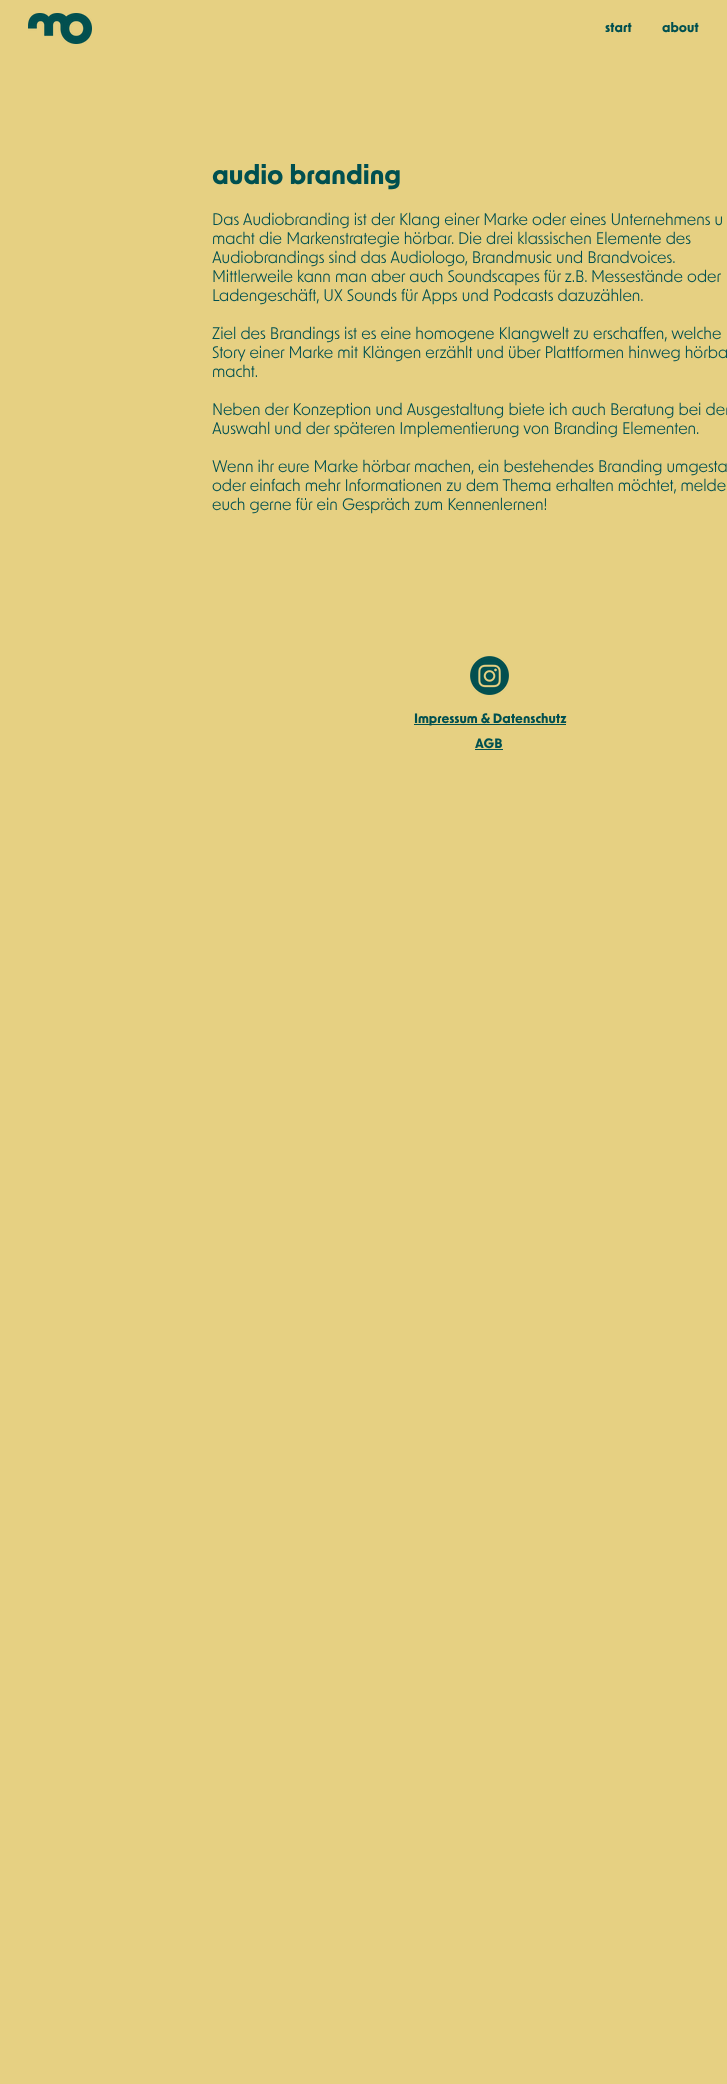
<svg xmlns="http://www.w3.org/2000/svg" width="727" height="2084">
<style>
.a{font:bold 13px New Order;fill:#005050}
.b{font:bold 26px New Order;fill:#005050}
.c{font:16px New Order;fill:#005050}
</style>
<rect width="100%" height="100%" fill="#e6d082"/>
<image href="1.png" x="28" y="13" width="64" height="31"/>
<image href="2.png" x="470" y="656" width="39" height="39"/>
<path fill="#005050" d="M414 724h152v1H414z"/>
<path fill="#005050" d="M475 749h28v1H475z"/>
<text class="a" x="605" y="32">start</text>
<text class="a" x="662" y="32">about</text>
<text class="b" x="212" y="184">audio branding</text>
<text class="c" x="212" y="225">Das Audiobranding ist der Klang einer Marke oder eines Unternehmens u</text>
<text class="c" x="212" y="244">macht die Markenstrategie hörbar.</text>
<text class="c" x="458" y="244">Die drei klassischen Elemente des</text>
<text class="c" x="212" y="263">Audiobrandings sind das Audiologo, Brandmusic und Brandvoices.</text>
<text class="c" x="212" y="282">Mittlerweile kann man aber auch Soundscapes für z.B. Messestände oder</text>
<text class="c" x="212" y="301">Ladengeschäft, UX Sounds für Apps und Podcasts dazuzählen.</text>
<text class="c" x="212" y="339">Ziel des Brandings ist es eine homogene Klangwelt zu erschaffen, welche</text>
<text class="c" x="212" y="358">Story einer Marke mit Klängen erzählt und über Plattformen hinweg hörba</text>
<text class="c" x="212" y="377">macht.</text>
<text class="c" x="212" y="415">Neben der Konzeption und Ausgestaltung biete ich auch Beratung bei der</text>
<text class="c" x="212" y="434">Auswahl und der späteren Implementierung von Branding Elementen.</text>
<text class="c" x="212" y="472">Wenn ihr eure Marke hörbar machen, ein bestehendes Branding umgesta</text>
<text class="c" x="212" y="491">oder einfach mehr Informationen zu dem Thema erhalten möchtet, melde</text>
<text class="c" x="212" y="510">euch gerne für ein Gespräch zum Kennenlernen!</text>
<text class="a" x="414" y="723">Impressum &amp; Datenschutz</text>
<text class="a" x="475" y="748">AGB</text>
</svg>
